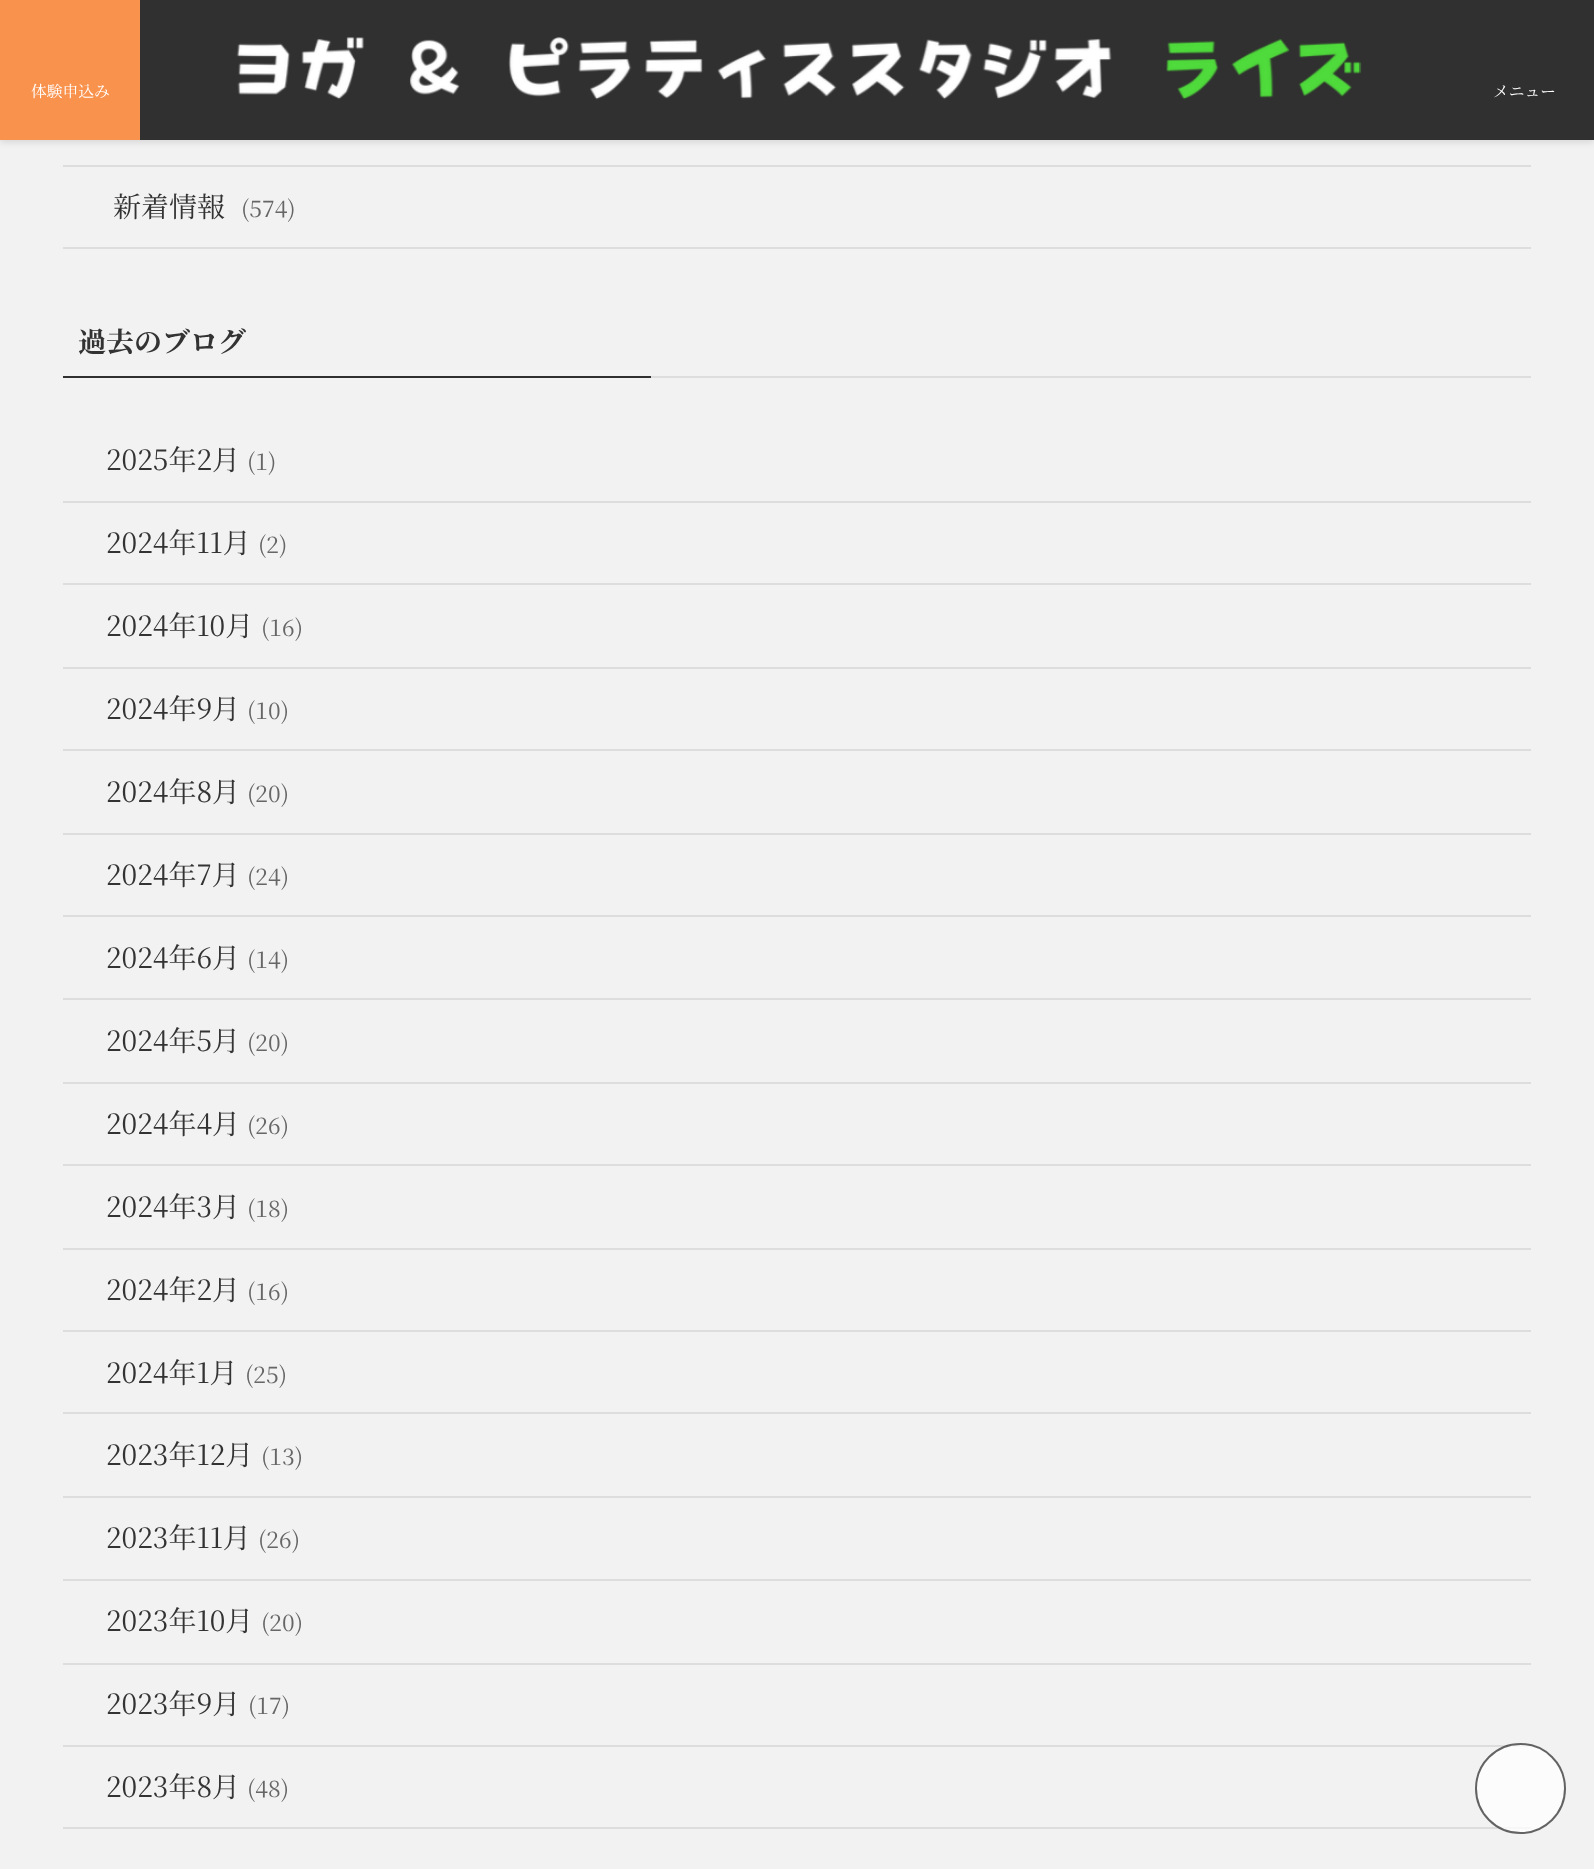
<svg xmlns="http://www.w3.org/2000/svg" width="1594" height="1869">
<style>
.a{font:15.75px Noto Serif JP;fill:#fff}
.b{font:28px Noto Serif JP;fill:#333}
.c{font:23px Noto Serif JP;fill:#666}
.d{font:bold 28px Noto Serif JP;fill:#333}
</style>
<rect width="100%" height="100%" fill="#f2f2f2"/>
<path fill="#0000001f" filter="blur(3.5px)" d="M0 2h1594v140H0z"/>
<path fill="#303030" d="M140 0h1454v140H140z"/>
<path fill="#f9924d" d="M0 0h140v140H0z"/>
<image href="1.png" x="236" y="37" width="1126" height="63"/>
<path fill="#ddd" d="M63 165h1468v2H63z"/>
<path fill="#ddd" d="M63 247h1468v2H63z"/>
<path fill="#303030" d="M63 376h588v2H63z"/>
<path fill="#ddd" d="M651 376h880v2H651z"/>
<path fill="#ddd" d="M63 501h1468v2H63z"/>
<path fill="#ddd" d="M63 583h1468v2H63z"/>
<path fill="#ddd" d="M63 667h1468v2H63z"/>
<path fill="#ddd" d="M63 749h1468v2H63z"/>
<path fill="#ddd" d="M63 833h1468v2H63z"/>
<path fill="#ddd" d="M63 915h1468v2H63z"/>
<path fill="#ddd" d="M63 998h1468v2H63z"/>
<path fill="#ddd" d="M63 1082h1468v2H63z"/>
<path fill="#ddd" d="M63 1164h1468v2H63z"/>
<path fill="#ddd" d="M63 1248h1468v2H63z"/>
<path fill="#ddd" d="M63 1330h1468v2H63z"/>
<path fill="#ddd" d="M63 1412h1468v2H63z"/>
<path fill="#ddd" d="M63 1496h1468v2H63z"/>
<path fill="#ddd" d="M63 1579h1468v2H63z"/>
<path fill="#ddd" d="M63 1663h1468v2H63z"/>
<path fill="#ddd" d="M63 1745h1468v2H63z"/>
<path fill="#ddd" d="M63 1827h1468v2H63z"/>
<circle fill="#ffffffbf" cx="1520.5" cy="1788.5" r="45.5"/>
<circle fill="none" stroke="#303030bf" stroke-width="2" cx="1520.5" cy="1788.5" r="44.5"/>
<text class="a" x="31" y="97">体験申込み</text>
<text class="a" x="1493" y="97">メニュー</text>
<text class="b" x="113" y="217">新着情報</text>
<text class="c" x="241" y="217">(574)</text>
<text class="d" x="78" y="352">過去のブログ</text>
<text class="b" x="106" y="470">2025年2月</text>
<text class="c" x="247" y="470">(1)</text>
<text class="b" x="106" y="553">2024年11月</text>
<text class="c" x="258" y="553">(2)</text>
<text class="b" x="106" y="636">2024年10月</text>
<text class="c" x="261" y="636">(16)</text>
<text class="b" x="106" y="719">2024年9月</text>
<text class="c" x="247" y="719">(10)</text>
<text class="b" x="106" y="802">2024年8月</text>
<text class="c" x="247" y="802">(20)</text>
<text class="b" x="106" y="885">2024年7月</text>
<text class="c" x="247" y="885">(24)</text>
<text class="b" x="106" y="968">2024年6月</text>
<text class="c" x="247" y="968">(14)</text>
<text class="b" x="106" y="1051">2024年5月</text>
<text class="c" x="247" y="1051">(20)</text>
<text class="b" x="106" y="1134">2024年4月</text>
<text class="c" x="247" y="1134">(26)</text>
<text class="b" x="106" y="1217">2024年3月</text>
<text class="c" x="247" y="1217">(18)</text>
<text class="b" x="106" y="1300">2024年2月</text>
<text class="c" x="247" y="1300">(16)</text>
<text class="b" x="106" y="1383">2024年1月</text>
<text class="c" x="245" y="1383">(25)</text>
<text class="b" x="106" y="1465">2023年12月</text>
<text class="c" x="261" y="1465">(13)</text>
<text class="b" x="106" y="1548">2023年11月</text>
<text class="c" x="258" y="1548">(26)</text>
<text class="b" x="106" y="1631">2023年10月</text>
<text class="c" x="261" y="1631">(20)</text>
<text class="b" x="106" y="1714">2023年9月</text>
<text class="c" x="248" y="1714">(17)</text>
<text class="b" x="106" y="1797">2023年8月</text>
<text class="c" x="247" y="1797">(48)</text>
</svg>
